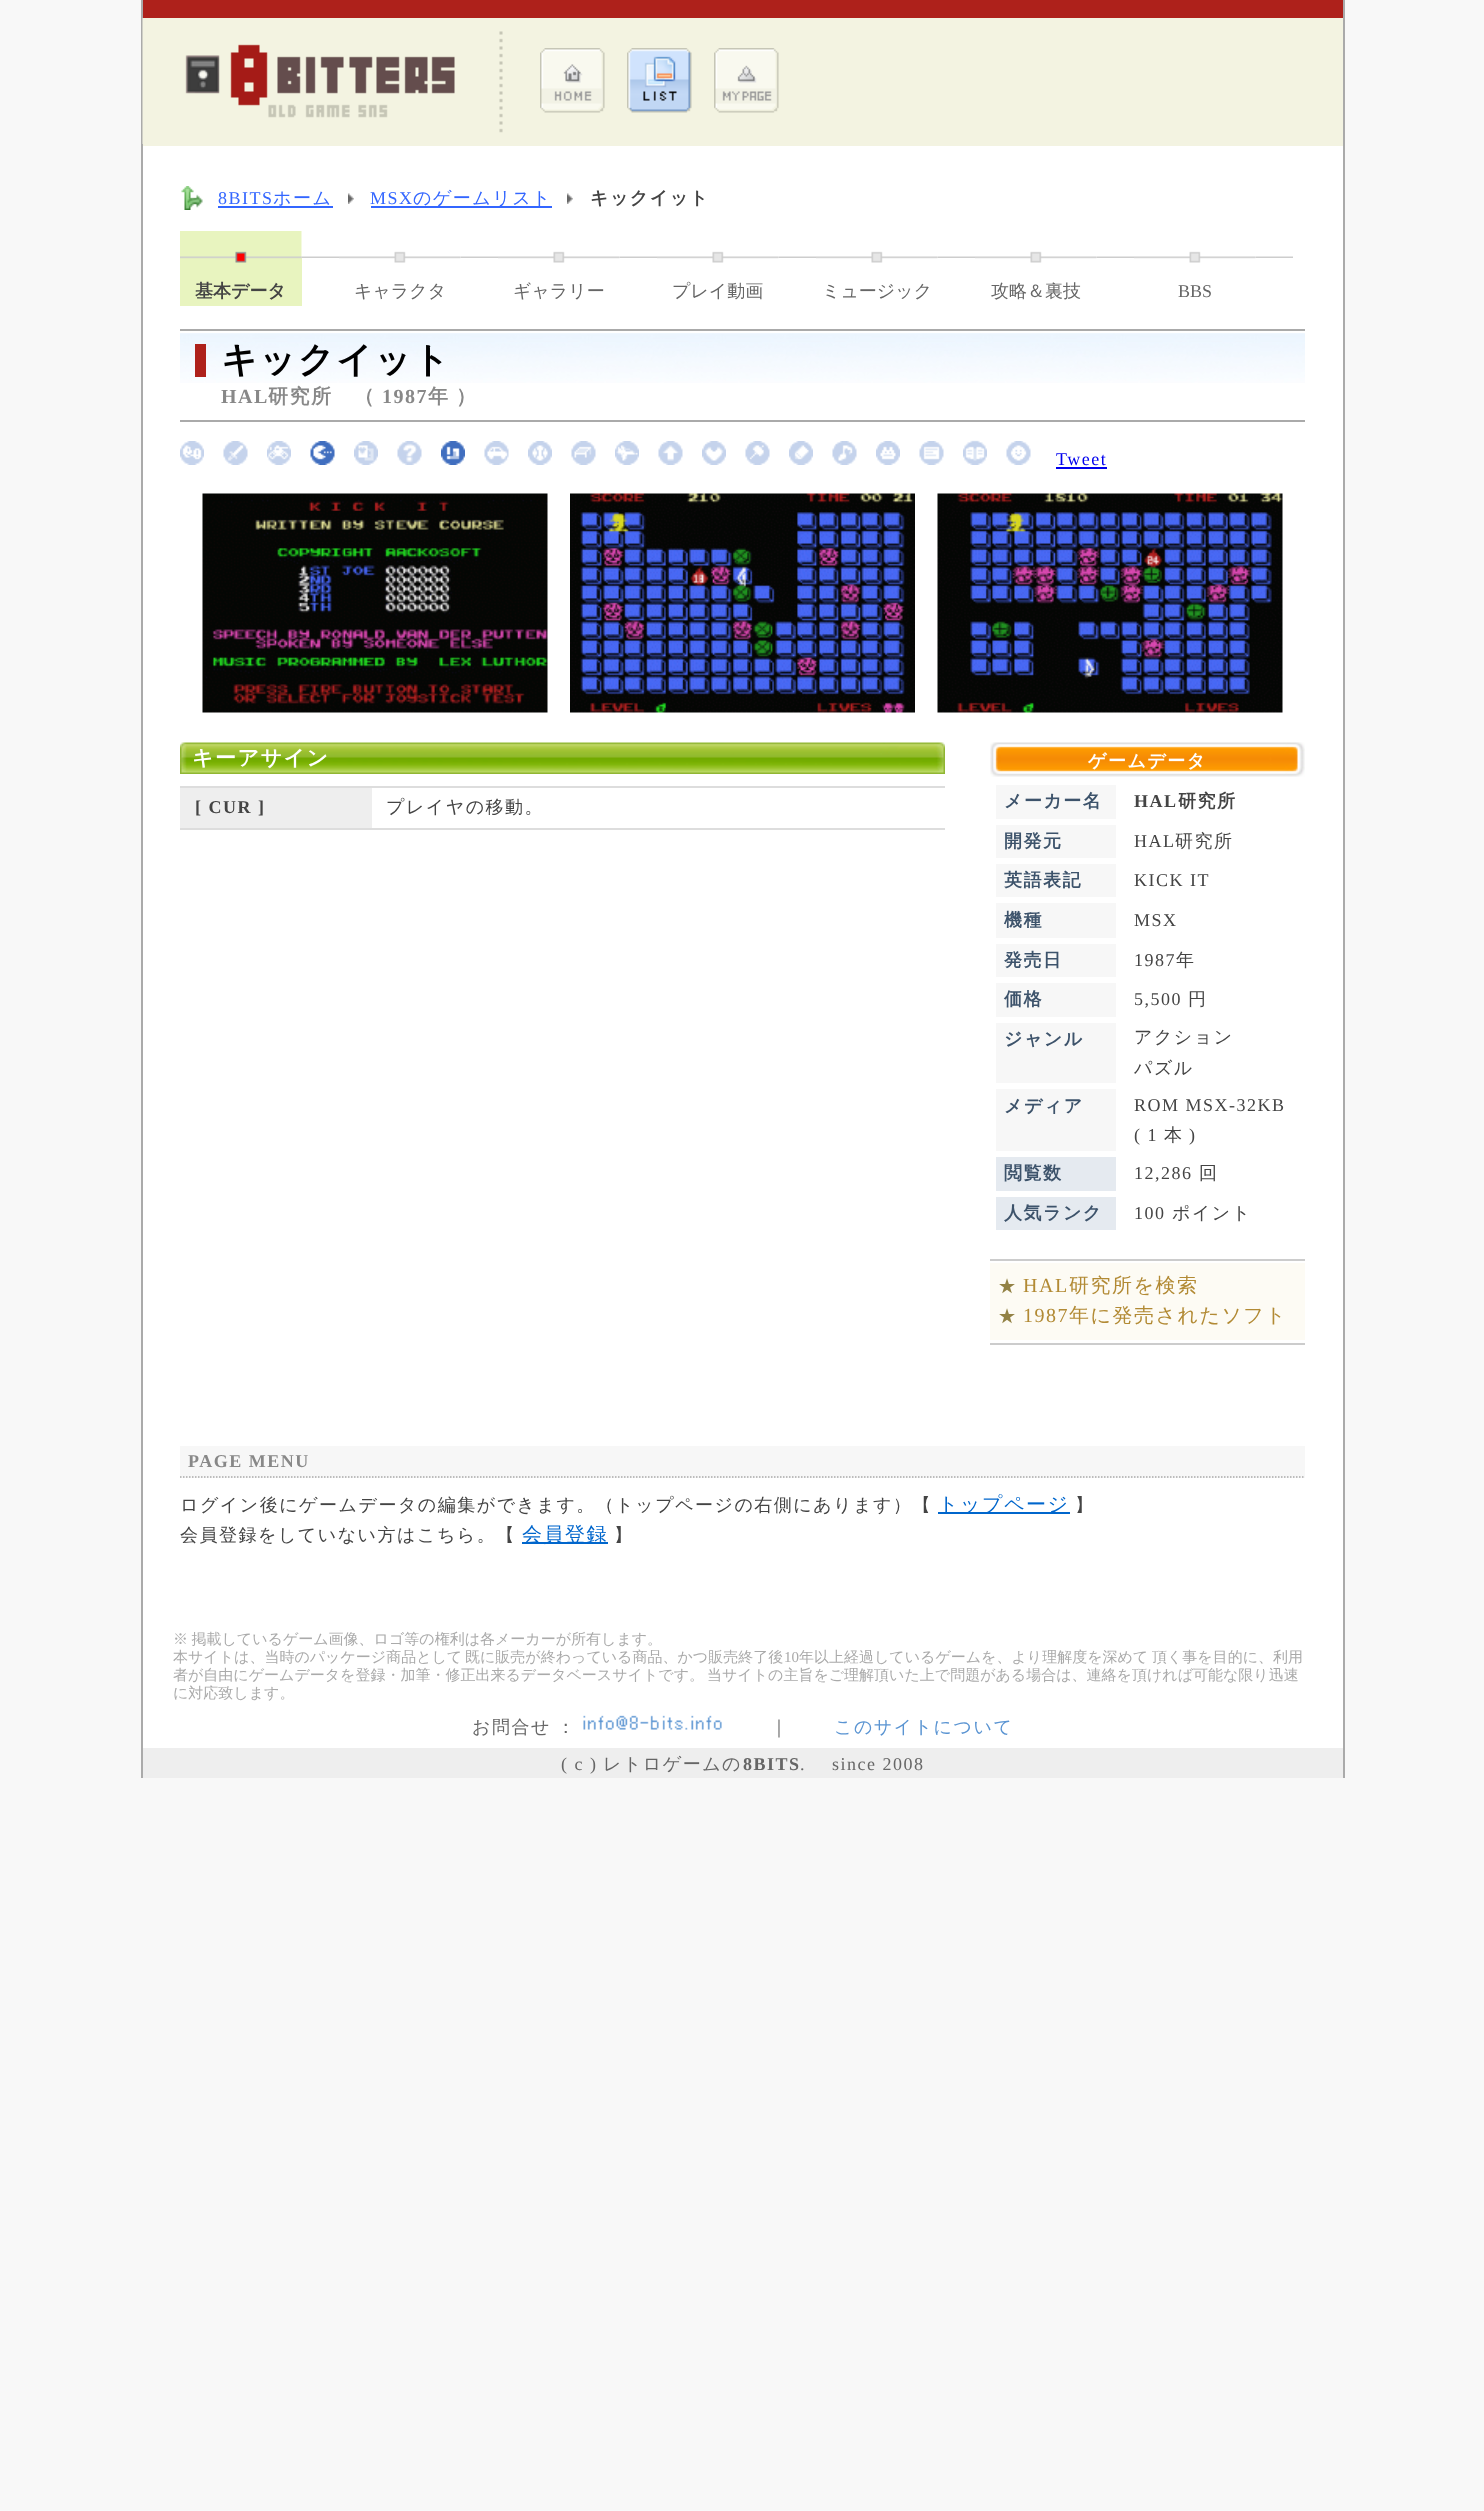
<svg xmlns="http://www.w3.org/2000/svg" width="1484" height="2511">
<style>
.a{font:18px Liberation Serif;letter-spacing:1.5px;fill:#36f}
.b{font:500 18px WenQuanYi Zen Hei;letter-spacing:1.5px;fill:#36f}
.c{font:bold 18px WenQuanYi Zen Hei;letter-spacing:1.5px;fill:#444}
.d{font:bold 18px WenQuanYi Zen Hei;fill:#444}
.e{font:500 18px WenQuanYi Zen Hei;fill:#666}
.f{font:18px Liberation Serif;fill:#666}
.g{font:bold 36px WenQuanYi Zen Hei;letter-spacing:1.5px;fill:#000}
.h{font:bold 20px Liberation Serif;letter-spacing:1.5px;fill:#888}
.i{font:bold 20px WenQuanYi Zen Hei;letter-spacing:1.5px;fill:#888}
.j{font:18px Liberation Serif;letter-spacing:1.5px;fill:#00e}
.k{font:bold 21px WenQuanYi Zen Hei;letter-spacing:1.5px;fill:#fff}
.l{font:bold 18px Liberation Serif;letter-spacing:1.5px;fill:#444}
.m{font:500 18px WenQuanYi Zen Hei;letter-spacing:1.5px;fill:#444}
.n{font:bold 18px WenQuanYi Zen Hei;letter-spacing:1.5px;fill:#fff}
.o{font:bold 18px WenQuanYi Zen Hei;letter-spacing:1.5px;fill:#3d536b}
.p{font:18px Liberation Serif;letter-spacing:1.5px;fill:#444}
.q{font:500 18px WenQuanYi Zen Hei;letter-spacing:1.5px;fill:#938245}
.r{font:20px Liberation Serif;letter-spacing:1.5px;fill:#b28a34}
.s{font:500 20px WenQuanYi Zen Hei;letter-spacing:1.5px;fill:#b28a34}
.t{font:bold 18px Liberation Serif;letter-spacing:1.5px;fill:#888}
.u{font:500 20px WenQuanYi Zen Hei;letter-spacing:1.5px;fill:#06c}
.v{font:500 15px WenQuanYi Zen Hei;fill:#aaa}
.w{font:15px Liberation Serif;fill:#aaa}
.x{font:500 18px WenQuanYi Zen Hei;letter-spacing:1.5px;fill:#666}
.y{font:500 18px WenQuanYi Zen Hei;letter-spacing:1.5px;fill:#5a94d2}
.z{font:18px Liberation Serif;letter-spacing:1.5px;fill:#666}
.a1{font:bold 18px Liberation Serif;letter-spacing:1.5px;fill:#666}
</style>
<rect width="100%" height="100%" fill="#f8f8f8"/>
<path fill="#fff" d="M143 146h1200v1602H143z"/>
<path fill="#aaa" d="M1343 0h2v1778H1343z"/>
<path fill="#aaa" d="M141 0h2v1778H141z"/>
<path fill="#ae211b" d="M143 0h1200v18H143z"/>
<path fill="#f3f3e1" d="M143 18h1200v128H143z"/>
<image href="1.png" x="142" y="18" width="361" height="126"/>
<image href="2.png" x="540" y="48" width="65" height="65"/>
<image href="3.png" x="627" y="48" width="65" height="65"/>
<image href="4.png" x="714" y="48" width="65" height="65"/>
<image href="5.png" x="181" y="186" width="22" height="24"/>
<path fill="#36f" d="M218 206h115v2H218z"/>
<image href="6.png" x="348" y="193" width="6" height="11"/>
<path fill="#36f" d="M371 206h181v2H371z"/>
<image href="6.png" x="567" y="193" width="6" height="11"/>
<path fill="#e8f4bf" d="M180 231h122v75H180z"/>
<image href="9.png" x="180" y="251" width="122" height="12"/>
<image href="7.png" x="301" y="231" width="38" height="27"/>
<image href="10.png" x="339" y="251" width="122" height="12"/>
<image href="8.png" x="460" y="256" width="38" height="2"/>
<image href="11.png" x="498" y="251" width="122" height="12"/>
<image href="8.png" x="619" y="256" width="38" height="2"/>
<image href="11.png" x="657" y="251" width="122" height="12"/>
<image href="8.png" x="778" y="256" width="38" height="2"/>
<image href="11.png" x="816" y="251" width="122" height="12"/>
<image href="8.png" x="937" y="256" width="38" height="2"/>
<image href="11.png" x="975" y="251" width="122" height="12"/>
<image href="8.png" x="1096" y="256" width="38" height="2"/>
<image href="12.png" x="1134" y="251" width="122" height="12"/>
<image href="8.png" x="1255" y="256" width="38" height="2"/>
<image href="13.png" x="180" y="333" width="1125" height="50"/>
<path fill="#aaa" d="M180 329h1125v2H180z"/>
<path fill="#aaa" d="M180 420h1125v2H180z"/>
<path fill="#ae211b" d="M195 344h11v33H195z"/>
<image href="14.png" x="180" y="441" width="24" height="24"/>
<image href="15.png" x="223" y="441" width="25" height="24"/>
<image href="16.png" x="267" y="441" width="24" height="24"/>
<image href="17.png" x="310" y="441" width="25" height="24"/>
<image href="18.png" x="354" y="441" width="24" height="24"/>
<image href="19.png" x="397" y="441" width="25" height="24"/>
<image href="20.png" x="441" y="441" width="24" height="24"/>
<image href="21.png" x="484" y="441" width="25" height="24"/>
<image href="22.png" x="528" y="441" width="24" height="24"/>
<image href="23.png" x="571" y="441" width="25" height="24"/>
<image href="24.png" x="615" y="441" width="24" height="24"/>
<image href="25.png" x="658" y="441" width="25" height="24"/>
<image href="26.png" x="702" y="441" width="24" height="24"/>
<image href="27.png" x="745" y="441" width="25" height="24"/>
<image href="28.png" x="789" y="441" width="24" height="24"/>
<image href="29.png" x="832" y="441" width="25" height="24"/>
<image href="30.png" x="876" y="441" width="24" height="24"/>
<image href="31.png" x="919" y="441" width="25" height="24"/>
<image href="32.png" x="963" y="440" width="24" height="25"/>
<image href="33.png" x="1006" y="441" width="25" height="24"/>
<path fill="#00e" d="M1056 467h51v2H1056z"/>
<image href="34.png" x="202" y="493" width="346" height="220"/>
<image href="35.png" x="570" y="493" width="345" height="220"/>
<image href="36.png" x="937" y="493" width="346" height="220"/>
<image href="37.png" x="180" y="742" width="765" height="32"/>
<path fill="#ddd" d="M180 786h765v2H180z"/>
<path fill="#eee" d="M180 788h192v40H180z"/>
<path fill="#ddd" d="M180 828h765v2H180z"/>
<image href="38.png" x="990" y="742" width="315" height="35"/>
<path fill="#f7f7f7" d="M996 785h120v34H996z"/>
<path fill="#f7f7f7" d="M996 825h120v33H996z"/>
<path fill="#f7f7f7" d="M996 864h120v33H996z"/>
<path fill="#f7f7f7" d="M996 903h120v35H996z"/>
<path fill="#f7f7f7" d="M996 944h120v33H996z"/>
<path fill="#f7f7f7" d="M996 983h120v34H996z"/>
<path fill="#f7f7f7" d="M996 1023h120v60H996z"/>
<path fill="#f7f7f7" d="M996 1089h120v62H996z"/>
<path fill="#e5eaf0" d="M996 1157h120v34H996z"/>
<path fill="#e5eaf0" d="M996 1197h120v33H996z"/>
<path fill="#ccc" d="M990 1259h315v2H990z"/>
<path fill="#ccc" d="M990 1343h315v2H990z"/>
<path fill="#fdfbf4" d="M990 1263h315v77H990z"/>
<path fill="#f7f7f7" d="M180 1446h1125v32H180z"/>
<path fill="none" stroke="#aaa" stroke-width="1.5" stroke-dasharray="1.5 1.5" d="M180 1477h1125"/>
<path fill="#06c" d="M938 1512h132v2H938z"/>
<path fill="#06c" d="M522 1542h86v2H522z"/>
<image href="39.png" x="583" y="1715" width="139" height="15"/>
<path fill="#eee" d="M143 1748h1200v30H143z"/>
<text class="a" x="218" y="204">8BITS</text>
<text class="b" x="273" y="204">ホーム</text>
<text class="a" x="370" y="204">MSX</text>
<text class="b" x="413" y="204">のゲームリスト</text>
<text class="c" x="590" y="204">キックイット</text>
<text class="d" x="195" y="297">基本データ</text>
<text class="e" x="354" y="297">キャラクタ</text>
<text class="e" x="513" y="297">ギャラリー</text>
<text class="e" x="672" y="297">プレイ動画</text>
<text class="e" x="822" y="297">ミュージック</text>
<text class="e" x="991" y="297">攻略＆裏技</text>
<text class="f" x="1178" y="297">BBS</text>
<text class="g" x="221" y="372">キックイット</text>
<text class="h" x="221" y="403">HAL</text>
<text class="i" x="268" y="403">研究所　（</text>
<text class="h" x="382" y="403">1987</text>
<text class="i" x="428" y="403" word-spacing="-1">年 ）</text>
<text class="j" x="1056" y="465">Tweet</text>
<text class="k" x="192" y="765">キーアサイン</text>
<text class="l" x="195" y="813">[ CUR ]</text>
<text class="m" x="386" y="813">プレイヤの移動。</text>
<text class="n" x="1088" y="767">ゲームデータ</text>
<text class="o" x="1004" y="807">メーカー名</text>
<text class="l" x="1134" y="807">HAL</text>
<text class="c" x="1178" y="807">研究所</text>
<text class="o" x="1004" y="847">開発元</text>
<text class="p" x="1134" y="847">HAL</text>
<text class="m" x="1175" y="847">研究所</text>
<text class="o" x="1004" y="886">英語表記</text>
<text class="p" x="1134" y="886">KICK IT</text>
<text class="o" x="1004" y="926">機種</text>
<text class="p" x="1134" y="926">MSX</text>
<text class="o" x="1004" y="966">発売日</text>
<text class="p" x="1134" y="966">1987</text>
<text class="m" x="1176" y="966">年</text>
<text class="o" x="1004" y="1005">価格</text>
<text class="p" x="1134" y="1005">5,500</text>
<text class="m" x="1188" y="1005">円</text>
<text class="o" x="1004" y="1045">ジャンル</text>
<text class="m" x="1134" y="1043">アクション</text>
<text class="m" x="1134" y="1074">パズル</text>
<text class="o" x="1004" y="1112">メディア</text>
<text class="p" x="1134" y="1111">ROM MSX-32KB</text>
<text class="p" x="1134" y="1141">( 1</text>
<text class="m" x="1164" y="1141">本</text>
<text class="p" x="1189" y="1141">)</text>
<text class="o" x="1004" y="1179">閲覧数</text>
<text class="p" x="1134" y="1179">12,286</text>
<text class="m" x="1199" y="1179">回</text>
<text class="o" x="1004" y="1219">人気ランク</text>
<text class="p" x="1134" y="1219">100</text>
<text class="m" x="1172" y="1219">ポイント</text>
<text class="q" x="998" y="1292">★</text>
<text class="r" x="1023" y="1292">HAL</text>
<text class="s" x="1069" y="1292">研究所を検索</text>
<text class="q" x="998" y="1322">★</text>
<text class="r" x="1023" y="1322">1987</text>
<text class="s" x="1069" y="1322">年に発売されたソフト</text>
<text class="t" x="188" y="1467">PAGE MENU</text>
<text class="m" x="180" y="1511">ログイン後にゲームデータの編集ができます。（トップページの右側にあります）【</text>
<text class="u" x="938" y="1511">トップページ</text>
<text class="m" x="1075" y="1511">】</text>
<text class="m" x="180" y="1541">会員登録をしていない方はこちら。【</text>
<text class="u" x="522" y="1541">会員登録</text>
<text class="m" x="614" y="1541">】</text>
<text class="v" x="173" y="1644" word-spacing="-1">※ 掲載しているゲーム画像、ロゴ等の権利は各メーカーが所有します。</text>
<text class="v" x="173" y="1662">本サイトは、当時のパッケージ商品として</text>
<text class="v" x="465" y="1662">既に販売が終わっている商品、かつ販売終了後</text>
<text class="w" x="784" y="1662">10</text>
<text class="v" x="799" y="1662">年以上経過しているゲームを、より理解度を深めて</text>
<text class="v" x="1152" y="1662">頂く事を目的に、利用</text>
<text class="v" x="173" y="1680">者が自由にゲームデータを登録・加筆・修正出来るデータベースサイトです。</text>
<text class="v" x="707" y="1680">当サイトの主旨をご理解頂いた上で問題がある場合は、連絡を頂ければ可能な限り迅速</text>
<text class="v" x="173" y="1698">に対応致します。</text>
<text class="x" x="472" y="1733" word-spacing="-1">お問合せ ：</text>
<text class="x" x="770" y="1733">｜</text>
<text class="y" x="834" y="1733">このサイトについて</text>
<text class="z" x="561" y="1770">( c )</text>
<text class="x" x="603" y="1770">レトロゲームの</text>
<text class="a1" x="743" y="1770">8BITS</text>
<text class="z" x="800" y="1770">.</text>
<text class="z" x="832" y="1770">since 2008</text>
</svg>
